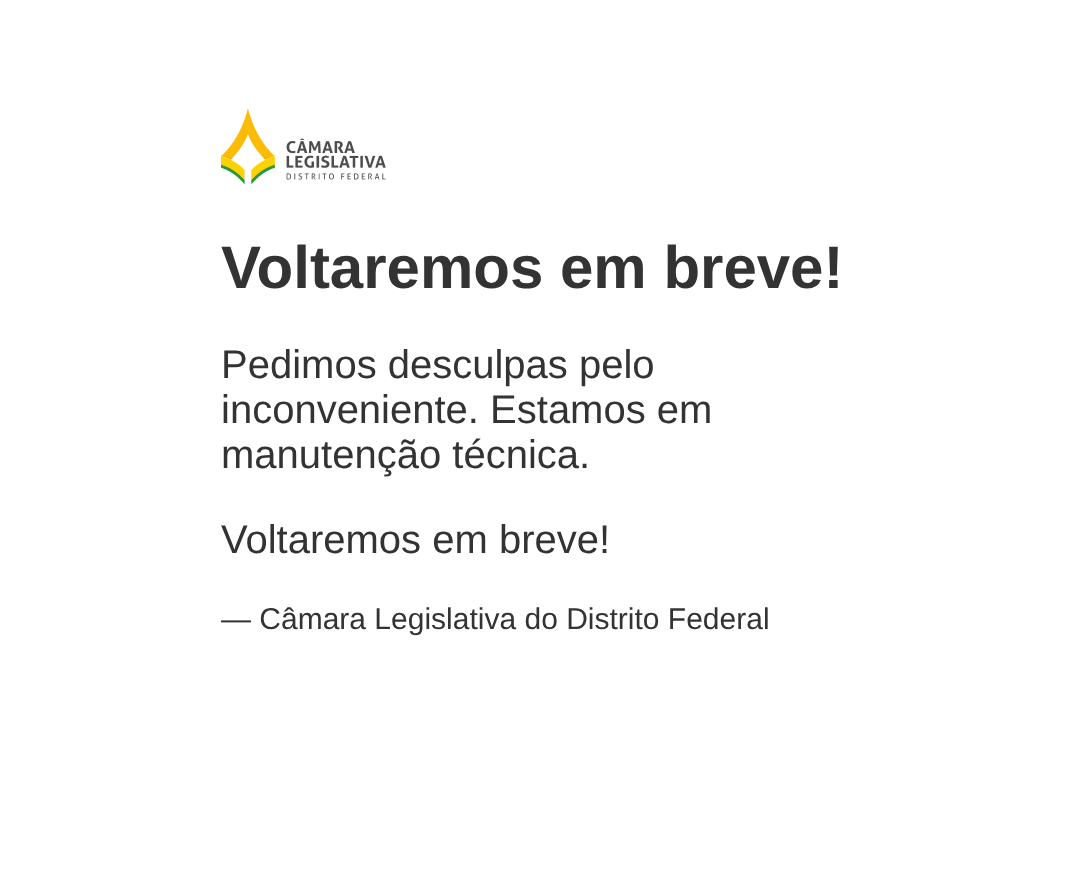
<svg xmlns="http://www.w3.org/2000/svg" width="1091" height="888">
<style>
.a{font:bold 60px Liberation Sans;fill:#333}
.b{font:40px Liberation Sans;fill:#333}
.c{font:30px Liberation Sans;fill:#333}
</style>
<rect width="100%" height="100%" fill="#fff"/>
<image href="1.png" x="221" y="108" width="165" height="76"/>
<text class="a" x="221" y="288">Voltaremos em breve!</text>
<text class="b" x="221" y="378">Pedimos desculpas pelo</text>
<text class="b" x="221" y="423">inconveniente. Estamos em</text>
<text class="b" x="221" y="468">manutenção técnica.</text>
<text class="b" x="221" y="553">Voltaremos em breve!</text>
<text class="c" x="221" y="629">— Câmara Legislativa do Distrito Federal</text>
</svg>
